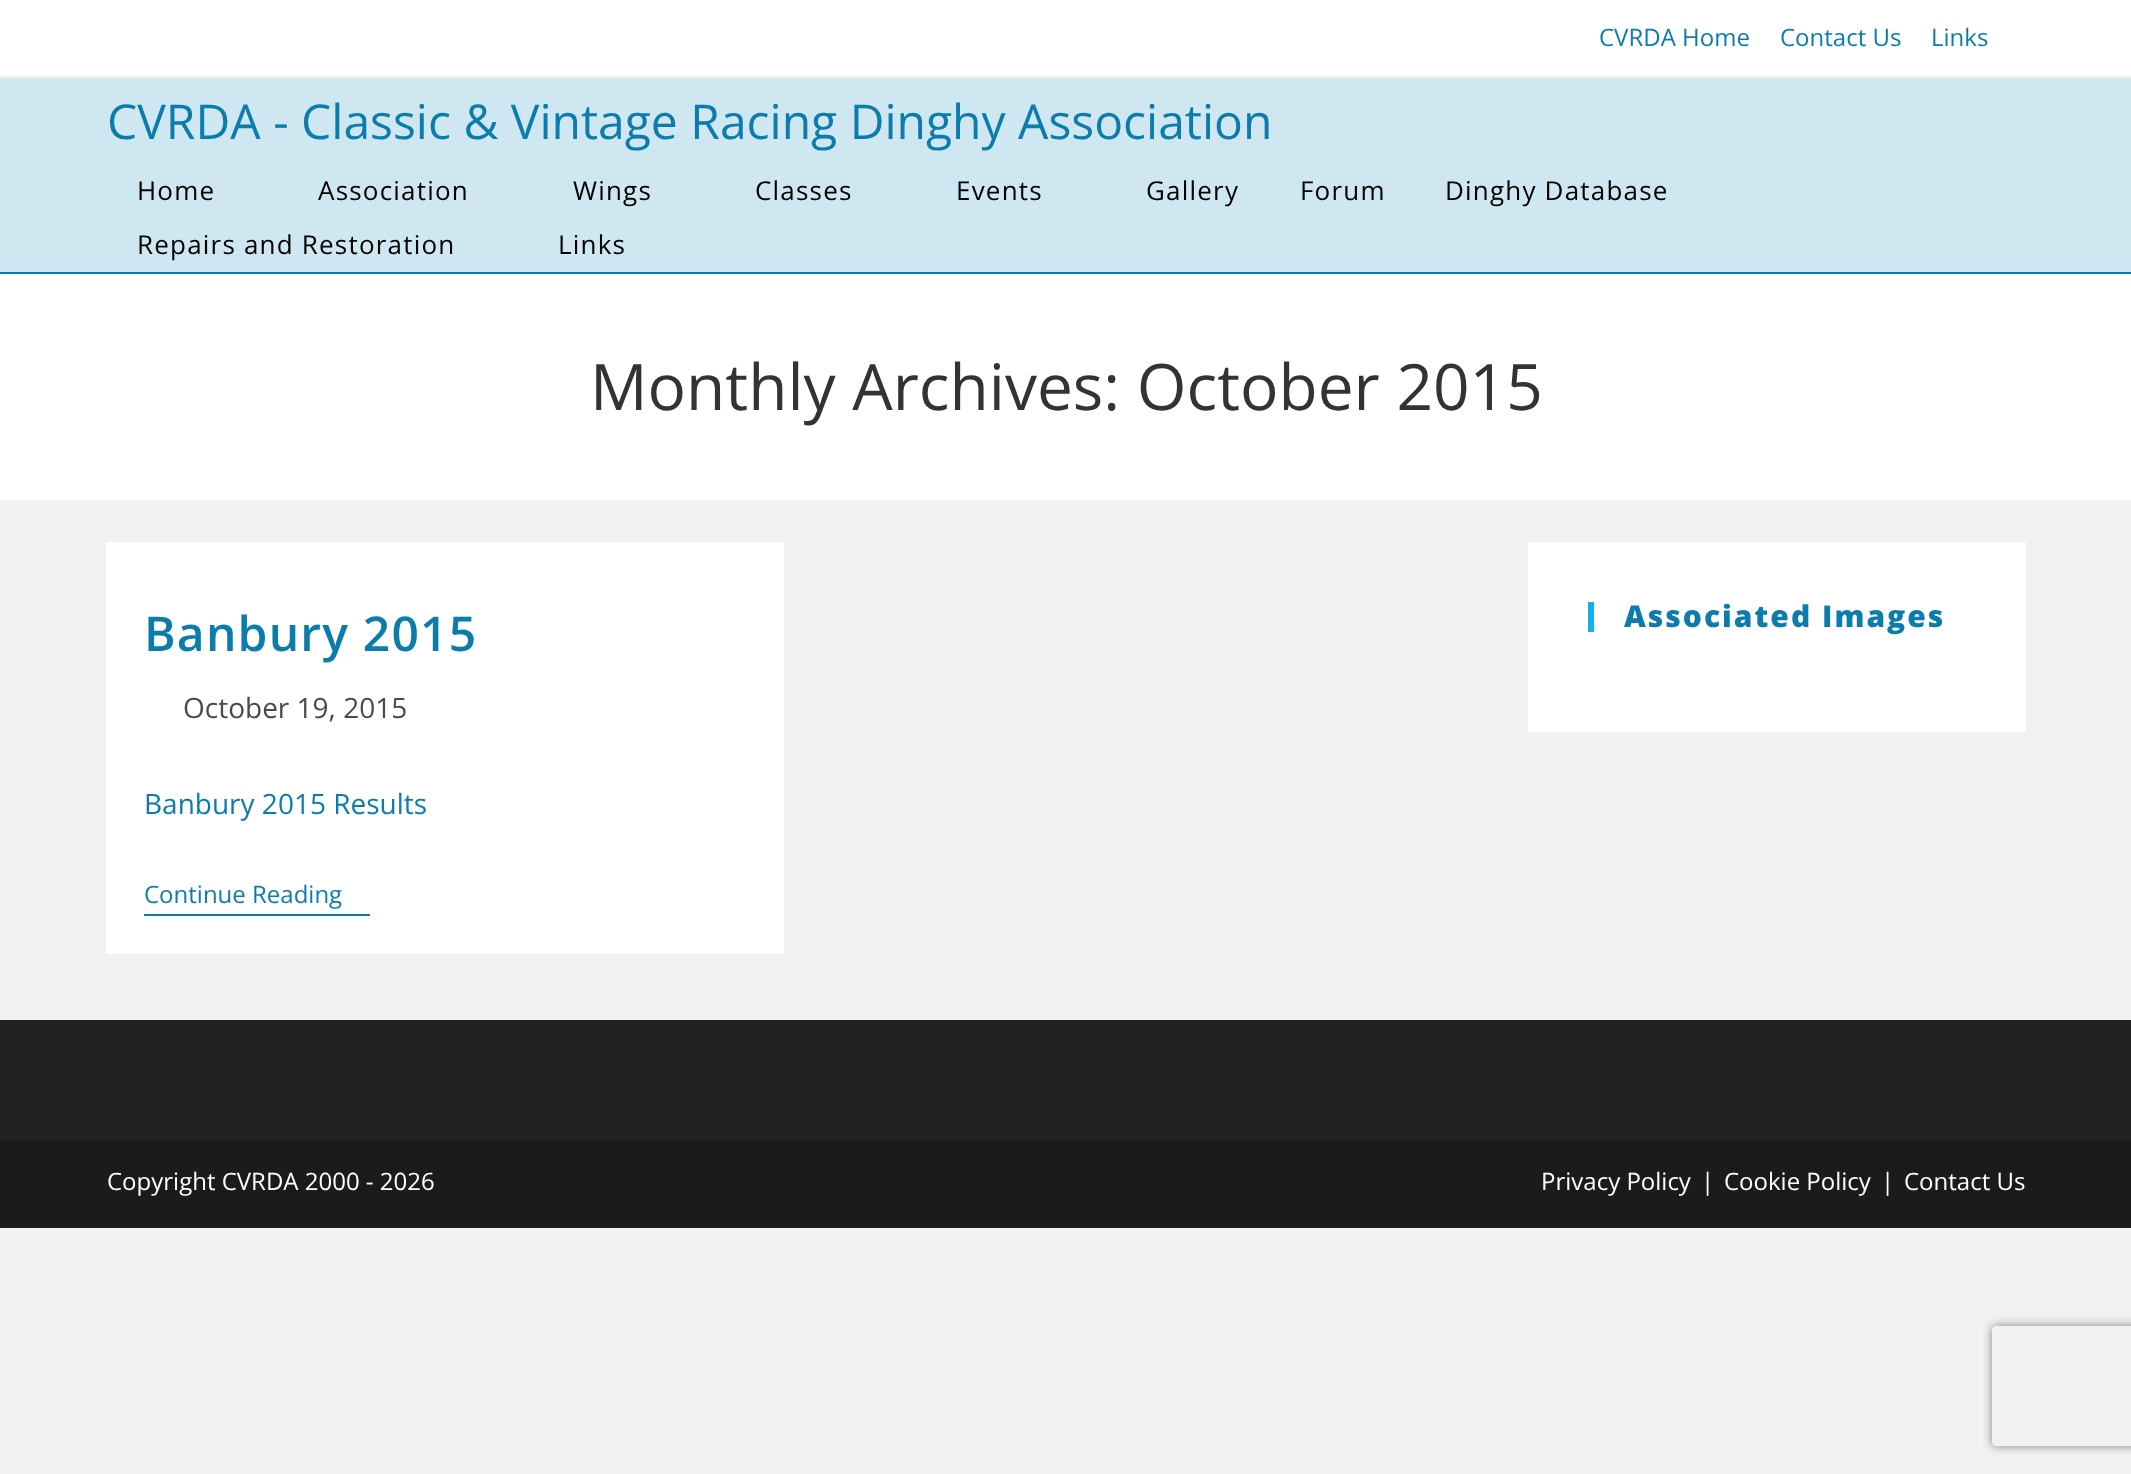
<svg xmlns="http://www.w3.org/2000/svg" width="2131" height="1474">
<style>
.a{font:24px Open Sans;fill:#0b7cac}
.b{font:48px Open Sans;fill:#0b7cac}
.c{font:26px Open Sans;letter-spacing:1.2px;fill:#000}
.d{font:64px Open Sans;fill:#333}
.e{font:600 48px Open Sans;letter-spacing:1.2px;fill:#0b7cac}
.f{font:28px Open Sans;fill:#4a4a4a}
.g{font:28px Open Sans;fill:#0b7cac}
.h{font:800 30px Open Sans;letter-spacing:2px;fill:#0b7cac}
.i{font:24px Open Sans;fill:#fff}
</style>
<defs>
<clipPath id="clip1"><path d="M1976 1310h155v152h-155zm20 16h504c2 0 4 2 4 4v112c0 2-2 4-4 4h-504c-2 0-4-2-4-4v-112c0-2 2-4 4-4z" clip-rule="evenodd"/></clipPath>
</defs>
<rect width="100%" height="100%" fill="#f1f1f1"/>
<path fill="#fff" d="M0 0h2131v76H0z"/>
<path fill="#cee7f1" d="M0 78h2131v194H0z"/>
<path fill="#0b7cac" d="M0 272h2131v2H0z"/>
<path fill="#fff" d="M0 274h2131v226H0z"/>
<path fill="#fff" d="M106 542h678v412H106z"/>
<path fill="#0b7cac" d="M144 914h226v2H144z"/>
<path fill="#fff" d="M1528 542h498v190H1528z"/>
<path fill="#13aff0" d="M1588 602h6v30H1588z"/>
<path fill="#222" d="M0 1020h2131v120H0z"/>
<path fill="#1b1b1b" d="M0 1140h2131v88H0z"/>
<g clip-path="url(#clip1)">
<rect fill="#808080" filter="blur(5px)" x="1992" y="1326" width="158" height="120" rx="4"/>
</g>
<text class="a" x="1599" y="46">CVRDA Home</text>
<text class="a" x="1780" y="46">Contact Us</text>
<text class="a" x="1931" y="46">Links</text>
<text class="b" x="107" y="139">CVRDA - Classic &amp; Vintage Racing Dinghy Association</text>
<text class="c" x="137" y="200">Home</text>
<text class="c" x="318" y="200">Association</text>
<text class="c" x="573" y="200">Wings</text>
<text class="c" x="755" y="200">Classes</text>
<text class="c" x="956" y="200">Events</text>
<text class="c" x="1146" y="200">Gallery</text>
<text class="c" x="1300" y="200">Forum</text>
<text class="c" x="1445" y="200">Dinghy Database</text>
<text class="c" x="137" y="254">Repairs and Restoration</text>
<text class="c" x="558" y="254">Links</text>
<text class="d" x="590" y="410">Monthly Archives: October 2015</text>
<text class="e" x="144" y="651">Banbury 2015</text>
<text class="f" x="183" y="718">October 19, 2015</text>
<text class="g" x="144" y="814">Banbury 2015 Results</text>
<text class="a" x="144" y="903">Continue Reading</text>
<text class="h" x="1624" y="627">Associated Images</text>
<text class="i" x="107" y="1190">Copyright CVRDA 2000 - 2026</text>
<text class="i" x="1541" y="1190">Privacy Policy</text>
<text class="i" x="1701" y="1190">|</text>
<text class="i" x="1724" y="1190">Cookie Policy</text>
<text class="i" x="1881" y="1190">|</text>
<text class="i" x="1904" y="1190">Contact Us</text>
</svg>
